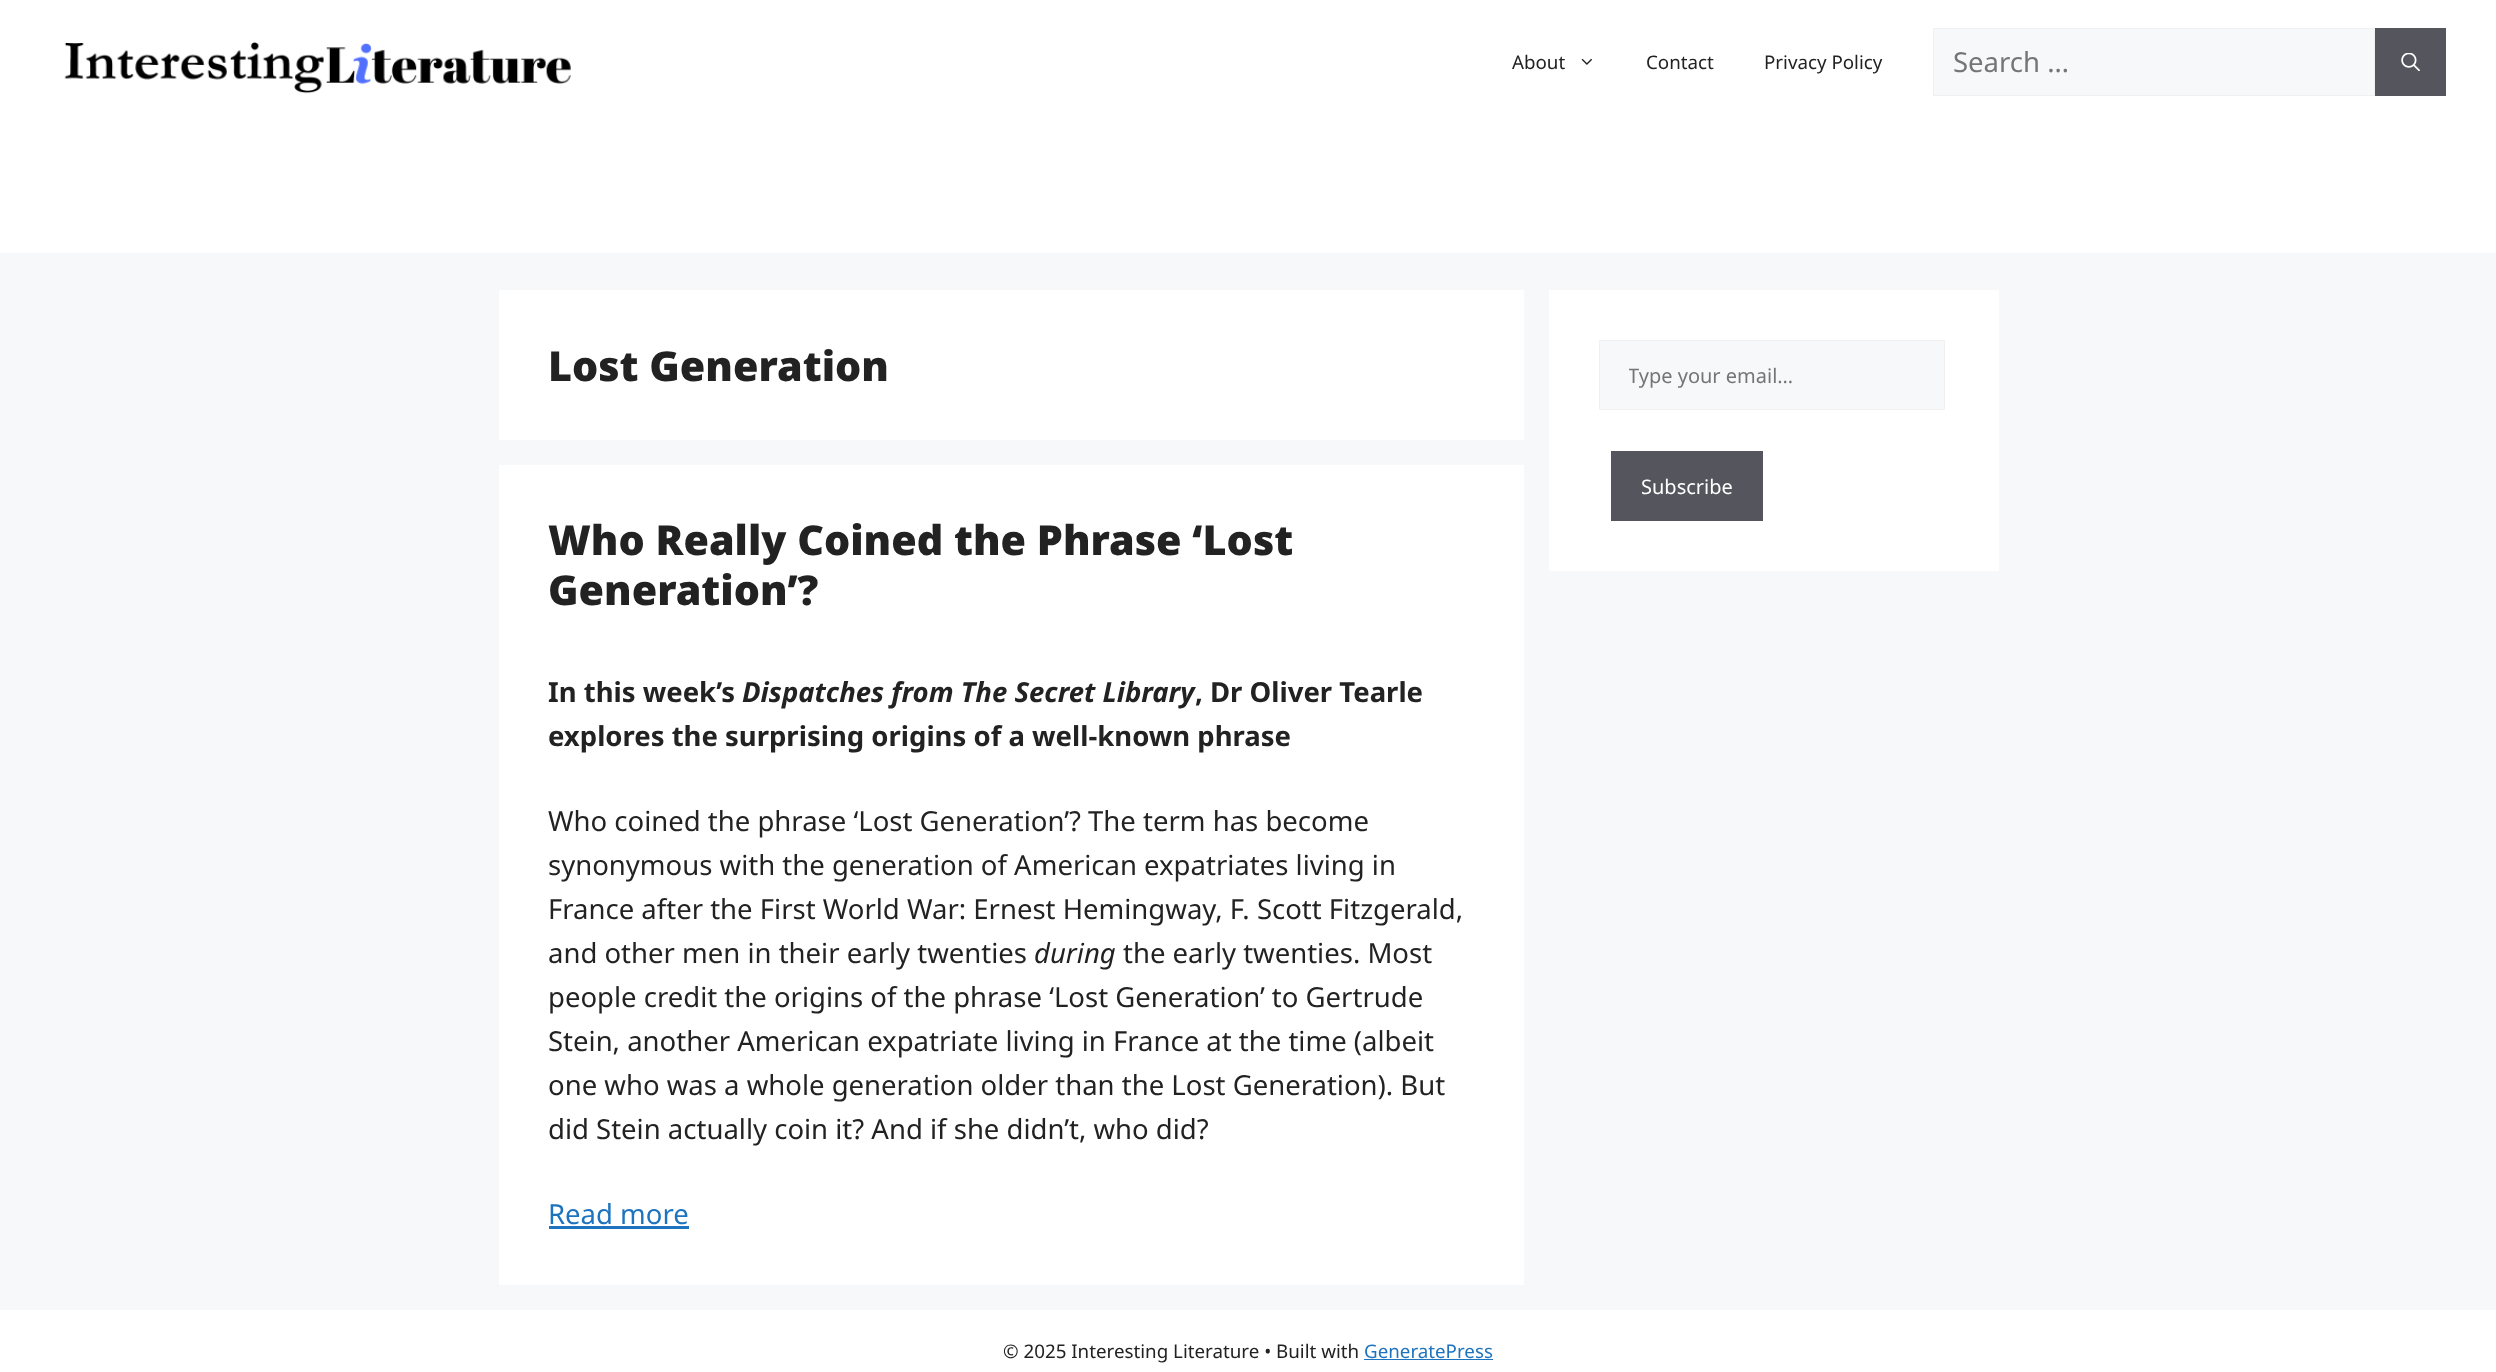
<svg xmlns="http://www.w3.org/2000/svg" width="2496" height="1372">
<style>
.a{font:18.75px Noto Sans;fill:#222}
.b{font:27.5px Noto Sans;fill:#757575}
.c{font:900 41.25px Noto Sans;fill:#222}
.d{font:bold 27.5px Noto Sans;fill:#222}
.e{font:italic bold 27.5px Noto Sans;fill:#222}
.f{font:27.5px Noto Sans;fill:#222}
.g{font:italic 27.5px Noto Sans;fill:#222}
.h{font:27.5px Noto Sans;fill:#1e73be}
.i{font:20px Noto Sans;fill:#757575}
.j{font:20px Noto Sans;fill:#fff}
.k{font:18.75px Noto Sans;fill:#1e73be}
</style>
<defs>
<clipPath id="clip1"><path d="M1629 361h286v28H1629z"/></clipPath>
</defs>
<rect width="100%" height="100%" fill="#f7f8f9"/>
<path fill="#fff" d="M0 0h2496v253H0z"/>
<image href="1.png" x="64" y="41" width="507" height="53"/>
<image href="2.png" x="1581" y="58" width="11" height="7"/>
<path fill="#f7f8f9" stroke="#f0f0f0" d="M1933.5 28.5h441v67H1933.5z"/>
<path fill="#55555e" d="M2375 28h71v68H2375z"/>
<image href="3.png" x="2401" y="53" width="19" height="18"/>
<path fill="#fff" d="M499 290h1025v150H499z"/>
<path fill="#fff" d="M499 465h1025v820H499z"/>
<path fill="#1e73be" d="M549 1226h140v3H549z"/>
<path fill="#fff" d="M1549 290h450v281H1549z"/>
<path fill="#f7f8f9" stroke="#f0f0f0" d="M1599.5 340.5h345v69H1599.5z"/>
<path fill="#55555e" d="M1611 451h152v70H1611z"/>
<path fill="#fff" d="M0 1310h2496v62H0z"/>
<path fill="#1e73be" d="M1364 1359h129v1H1364z"/>
<text class="a" x="1512" y="69">About</text>
<text class="a" x="1646" y="69">Contact</text>
<text class="a" x="1764" y="69">Privacy Policy</text>
<text class="b" x="1953" y="72">Search …</text>
<text class="c" x="548" y="381">Lost Generation</text>
<text class="c" x="548" y="555">Who Really Coined the Phrase ‘Lost</text>
<text class="c" x="548" y="605">Generation’?</text>
<text class="d" x="548" y="702">In this week’s</text>
<text class="e" x="742" y="702">Dispatches from The Secret Library</text>
<text class="d" x="1195" y="702">, Dr Oliver Tearle</text>
<text class="d" x="548" y="746">explores the surprising origins of a well-known phrase</text>
<text class="f" x="548" y="831">Who coined the phrase ‘Lost Generation’? The term has become</text>
<text class="f" x="548" y="875">synonymous with the generation of American expatriates living in</text>
<text class="f" x="548" y="919">France after the First World War: Ernest Hemingway, F. Scott Fitzgerald,</text>
<text class="f" x="548" y="963">and other men in their early twenties</text>
<text class="g" x="1034" y="963">during</text>
<text class="f" x="1123" y="963">the early twenties. Most</text>
<text class="f" x="548" y="1007">people credit the origins of the phrase ‘Lost Generation’ to Gertrude</text>
<text class="f" x="548" y="1051">Stein, another American expatriate living in France at the time (albeit</text>
<text class="f" x="548" y="1095">one who was a whole generation older than the Lost Generation). But</text>
<text class="f" x="548" y="1139">did Stein actually coin it? And if she didn’t, who did?</text>
<text class="h" x="548" y="1224">Read more</text>
<g clip-path="url(#clip1)">
<text class="i" x="1628" y="383">Type your email…</text>
</g>
<text class="j" x="1641" y="494">Subscribe</text>
<text class="a" x="1003" y="1358">© 2025 Interesting Literature • Built with</text>
<text class="k" x="1364" y="1358">GeneratePress</text>
</svg>
